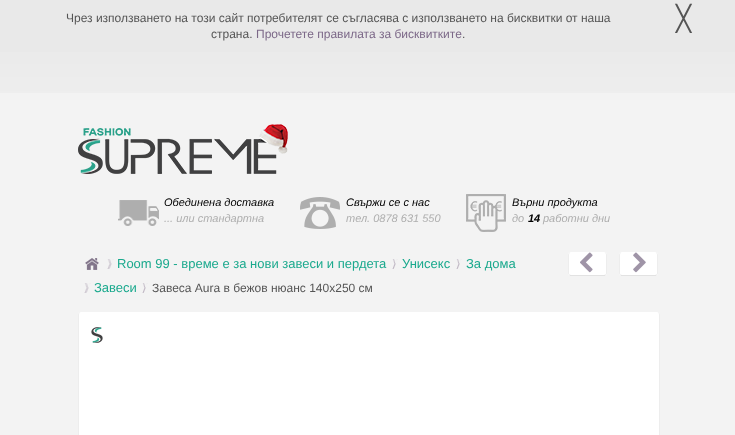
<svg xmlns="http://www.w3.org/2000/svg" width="735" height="435">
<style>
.a{font:12px Liberation Sans;fill:#555}
.b{font:12px Liberation Sans;fill:#7c6888}
.c{font:25px DejaVu Sans;fill:#555}
.d{font:italic 11px Liberation Sans;fill:#000}
.e{font:italic 11px Liberation Sans;fill:#aeaeae}
.f{font:italic bold 11px Liberation Sans;fill:#000}
.g{font:13px Liberation Sans;fill:#1aa98d}
</style>
<rect width="100%" height="100%" fill="#fff"/>
<image href="1.png" x="0" y="52" width="735" height="41"/>
<path fill="#e9e9e9" d="M0 0h735v52H0z"/>
<path fill="#f3f3f3" d="M0 93h735v342H0z"/>
<image href="2.png" x="78" y="124" width="210" height="50"/>
<image href="3.png" x="118" y="200" width="41" height="26"/>
<image href="4.png" x="300" y="197" width="40" height="32"/>
<image href="5.png" x="466" y="194" width="40" height="38"/>
<image href="6.png" x="85" y="258" width="14" height="12"/>
<image href="7.png" x="107" y="259" width="7" height="10"/>
<image href="8.png" x="392" y="259" width="6" height="10"/>
<image href="8.png" x="456" y="259" width="6" height="10"/>
<image href="7.png" x="84" y="283" width="7" height="10"/>
<image href="8.png" x="142" y="283" width="6" height="10"/>
<rect fill="#fff" x="568" y="252" width="39" height="24" rx="3"/>
<path fill="#ededed" d="M607 255c0-1.5-1.5-3-3-3c1 0 2 1.5 2 3v18c0 .5 0 1-.5 1.5l.5 .5c.5-.5 1-1 1-2z"/>
<path fill="#e2e2e2" d="M569.5 274.5l1.5 .5h33l1.5-.5l.5 .5c-.5 .5-1 1-2 1h-33c-1 0-1.5-.5-2-1z"/>
<path fill="#ededed" d="M571 252c-1.5 0-3 1.5-3 3v18c0 1 .5 1.5 1 2l.5-.5c-.5-.5-.5-1-.5-1.5v-18c0-1.5 1-3 2-3z"/>
<image href="9.png" x="580" y="252" width="13" height="21"/>
<rect fill="#fff" x="619" y="252" width="39" height="24" rx="3"/>
<path fill="#ededed" d="M658 255c0-1.5-1.5-3-3-3c1 0 2 1.5 2 3v18c0 .5 0 1-.5 1.5l.5 .5c.5-.5 1-1 1-2z"/>
<path fill="#e2e2e2" d="M620.5 274.5l1.5 .5h33l1.5-.5l.5 .5c-.5 .5-1 1-2 1h-33c-1 0-1.5-.5-2-1z"/>
<path fill="#ededed" d="M622 252c-1.5 0-3 1.5-3 3v18c0 1 .5 1.5 1 2l.5-.5c-.5-.5-.5-1-.5-1.5v-18c0-1.5 1-3 2-3z"/>
<image href="10.png" x="633" y="252" width="13" height="21"/>
<rect fill="#fff" x="78" y="312" width="582" height="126" rx="3"/>
<path fill="#ededed" d="M660 315c0-2-1-3-3-3c1 0 2 1 2 3v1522l-1 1l1 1h1z"/>
<path fill="#ededed" d="M81 312c-2 0-3 1-3 3v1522l1 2l1-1l-1-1v-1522c0-2 1-3 2-3z"/>
<image href="11.png" x="91" y="327" width="12" height="16"/>
<text class="a" x="66" y="22">Чрез използването на този сайт потребителят се съгласява с използването на бисквитки от наша</text>
<text class="a" x="211" y="38">страна.</text>
<text class="b" x="256" y="38">Прочетете правилата за бисквитките</text>
<text class="a" x="462" y="38">.</text>
<text class="c" x="676" y="27">╳</text>
<text class="d" x="164" y="206">Обединена доставка</text>
<text class="e" x="164" y="222">... или стандартна</text>
<text class="d" x="346" y="206">Свържи се с нас</text>
<text class="e" x="346" y="222">тел. 0878 631 550</text>
<text class="d" x="512" y="206">Върни продукта</text>
<text class="e" x="512" y="222">до</text>
<text class="f" x="528" y="222">14</text>
<text class="e" x="543" y="222">работни дни</text>
<text class="g" x="117" y="268">Room 99 - време е за нови завеси и пердета</text>
<text class="g" x="402" y="268">Унисекс</text>
<text class="g" x="466" y="268">За дома</text>
<text class="g" x="94" y="292">Завеси</text>
<text class="a" x="152" y="292">Завеса Aura в бежов нюанс 140x250 см</text>
</svg>
